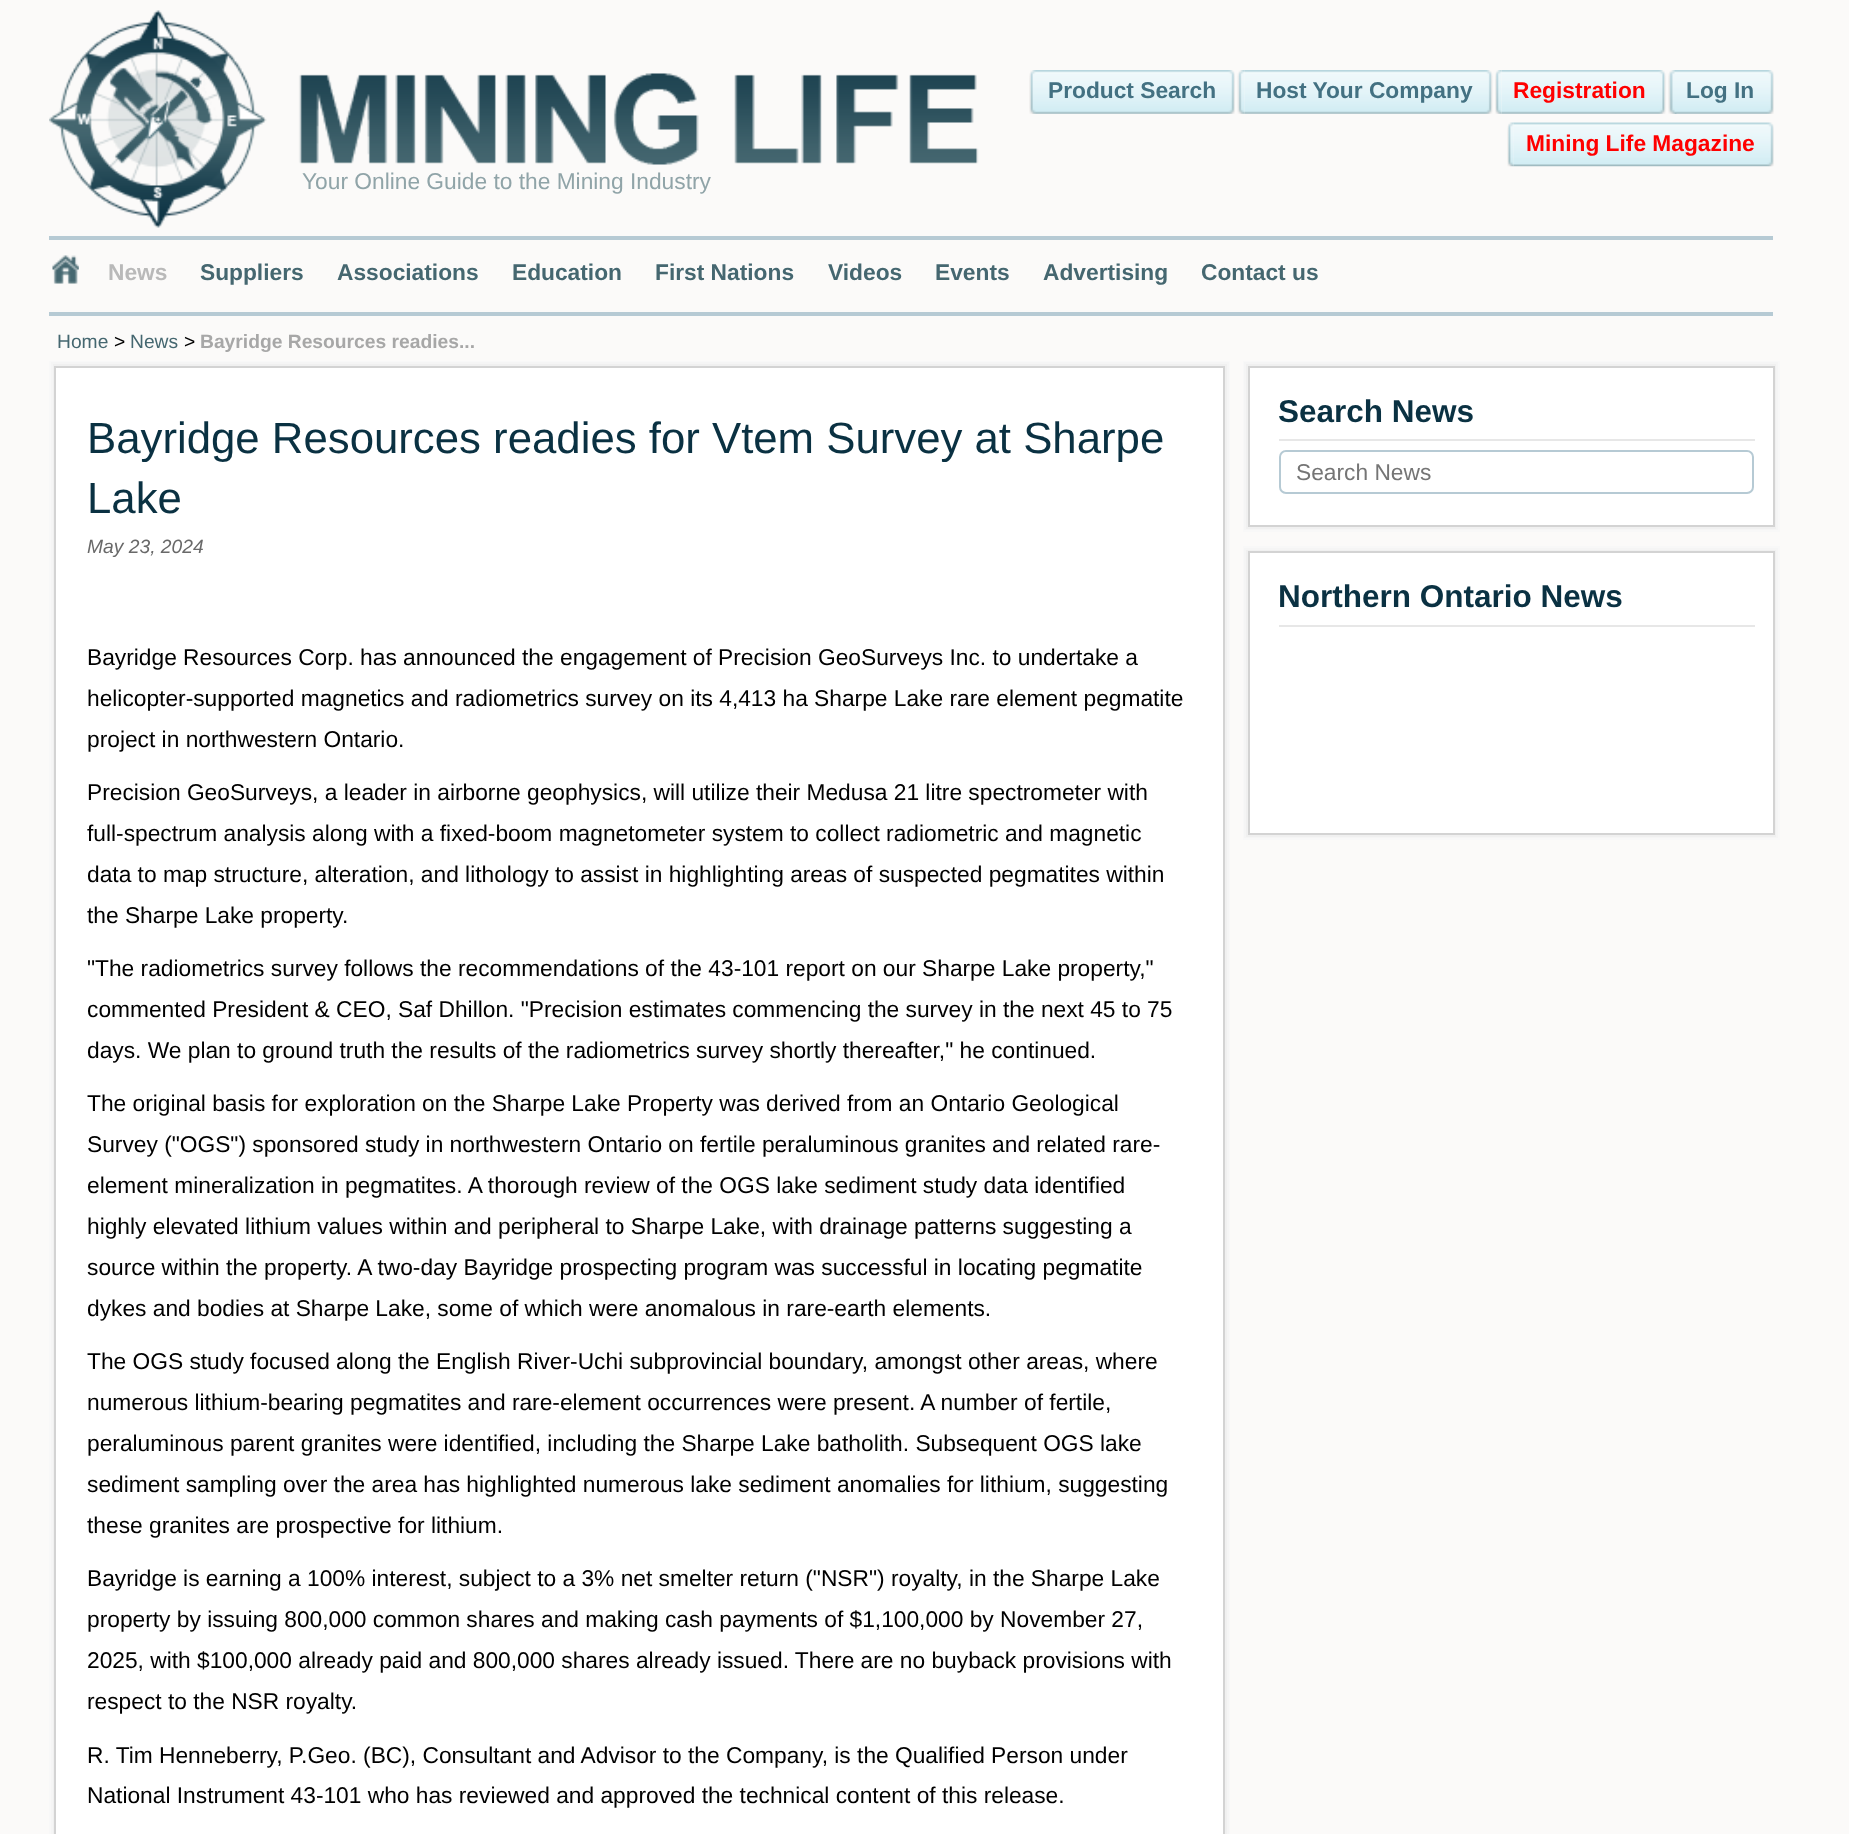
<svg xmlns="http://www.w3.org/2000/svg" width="1849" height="1834">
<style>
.a{font:bold 22.75px Liberation Sans;fill:#437182}
.b{font:bold 22.75px Liberation Sans;fill:#f00}
.c{font:22.75px Liberation Sans;fill:#90a4a8}
.d{font:bold 22.75px Liberation Sans;fill:#b9b9b9}
.e{font:bold 22.75px Liberation Sans;fill:#456770}
.f{font:19.25px Liberation Sans;fill:#456770}
.g{font:19.25px Liberation Sans;fill:#000}
.h{font:bold 19.25px Liberation Sans;fill:#a7a7a7}
.i{font:43.75px Liberation Sans;fill:#0a3142}
.j{font:italic 19.25px Liberation Sans;fill:#696969}
.k{font:22.75px Liberation Sans;fill:#000}
.l{font:bold 31.5px Liberation Sans;fill:#0a3142}
.m{font:22.75px Liberation Sans;fill:#757575}
</style>
<rect width="100%" height="100%" fill="#fbfaf9"/>
<image href="1.png" x="1029" y="70" width="7" height="44"/>
<image href="2.png" x="1036" y="70" width="199" height="44"/>
<image href="3.png" x="1237" y="70" width="8" height="44"/>
<image href="4.png" x="1244" y="70" width="249" height="44"/>
<image href="5.png" x="1495" y="70" width="7" height="44"/>
<image href="6.png" x="1501" y="70" width="165" height="44"/>
<image href="7.png" x="1668" y="70" width="9" height="44"/>
<image href="8.png" x="1674" y="70" width="100" height="44"/>
<image href="9.png" x="1507" y="122" width="7" height="45"/>
<image href="10.png" x="1513" y="122" width="261" height="45"/>
<image href="11.png" x="49" y="10" width="930" height="218"/>
<path fill="#b6cad4" d="M49 236h1724v4H49z"/>
<path fill="#b6cad4" d="M49 312h1724v4H49z"/>
<image href="12.png" x="52" y="255" width="27" height="29"/>
<path fill="#fff" d="M56 368h1167v1466H56z"/>
<path fill="none" stroke="#f8f8f8" stroke-width="2" d="M50 362h1179v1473H50z"/>
<path fill="none" stroke="#f5f5f5" stroke-width="2" d="M52 363h1176v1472H52z"/>
<path fill="none" stroke="#f0f0f0" stroke-width="2" d="M54 365h1172v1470H54z"/>
<path fill="none" stroke="#d3d3d3" stroke-width="2" d="M55 367h1169v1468H55z"/>
<path fill="#fff" d="M1250 368h523v157H1250z"/>
<path fill="none" stroke="#f8f8f8" stroke-width="2" d="M1244 362h535v169H1244z"/>
<path fill="none" stroke="#f5f5f5" stroke-width="2" d="M1245 363h532v166H1245z"/>
<path fill="none" stroke="#f0f0f0" stroke-width="2" d="M1247 365h528v163H1247z"/>
<path fill="none" stroke="#d3d3d3" stroke-width="2" d="M1249 367h525v159H1249z"/>
<path fill="#e7e7e7" d="M1279 439h476v2H1279z"/>
<rect fill="none" stroke="#b6cad4" stroke-width="2" x="1280" y="451" width="473" height="42" rx="6"/>
<path fill="#fff" d="M1250 553h523v280H1250z"/>
<path fill="none" stroke="#f8f8f8" stroke-width="2" d="M1244 547h535v292H1244z"/>
<path fill="none" stroke="#f5f5f5" stroke-width="2" d="M1245 549h532v288H1245z"/>
<path fill="none" stroke="#f0f0f0" stroke-width="2" d="M1247 551h528v285H1247z"/>
<path fill="none" stroke="#d3d3d3" stroke-width="2" d="M1249 552h525v282H1249z"/>
<path fill="#e7e7e7" d="M1279 625h476v2H1279z"/>
<text class="a" x="1048" y="98">Product Search</text>
<text class="a" x="1256" y="98">Host Your Company</text>
<text class="b" x="1513" y="98">Registration</text>
<text class="a" x="1686" y="98">Log In</text>
<text class="b" x="1526" y="151">Mining Life Magazine</text>
<text class="c" x="302" y="189">Your Online Guide to the Mining Industry</text>
<text class="d" x="108" y="280">News</text>
<text class="e" x="200" y="280">Suppliers</text>
<text class="e" x="337" y="280">Associations</text>
<text class="e" x="512" y="280">Education</text>
<text class="e" x="655" y="280">First Nations</text>
<text class="e" x="828" y="280">Videos</text>
<text class="e" x="935" y="280">Events</text>
<text class="e" x="1043" y="280">Advertising</text>
<text class="e" x="1201" y="280">Contact us</text>
<text class="f" x="57" y="348">Home</text>
<text class="g" x="114" y="348">&gt;</text>
<text class="f" x="130" y="348">News</text>
<text class="g" x="184" y="348">&gt;</text>
<text class="h" x="200" y="348">Bayridge Resources readies...</text>
<text class="i" x="87" y="453">Bayridge Resources readies for Vtem Survey at Sharpe</text>
<text class="i" x="87" y="513">Lake</text>
<text class="j" x="87" y="553">May 23, 2024</text>
<text class="k" x="87" y="665">Bayridge Resources Corp. has announced the engagement of Precision GeoSurveys Inc. to undertake a</text>
<text class="k" x="87" y="706">helicopter-supported magnetics and radiometrics survey on its 4,413 ha Sharpe Lake rare element pegmatite</text>
<text class="k" x="87" y="747">project in northwestern Ontario.</text>
<text class="k" x="87" y="800">Precision GeoSurveys, a leader in airborne geophysics, will utilize their Medusa 21 litre spectrometer with</text>
<text class="k" x="87" y="841">full-spectrum analysis along with a fixed-boom magnetometer system to collect radiometric and magnetic</text>
<text class="k" x="87" y="882">data to map structure, alteration, and lithology to assist in highlighting areas of suspected pegmatites within</text>
<text class="k" x="87" y="923">the Sharpe Lake property.</text>
<text class="k" x="87" y="976">"The radiometrics survey follows the recommendations of the 43-101 report on our Sharpe Lake property,"</text>
<text class="k" x="87" y="1017">commented President &amp; CEO, Saf Dhillon. "Precision estimates commencing the survey in the next 45 to 75</text>
<text class="k" x="87" y="1058">days. We plan to ground truth the results of the radiometrics survey shortly thereafter," he continued.</text>
<text class="k" x="87" y="1111">The original basis for exploration on the Sharpe Lake Property was derived from an Ontario Geological</text>
<text class="k" x="87" y="1152">Survey ("OGS") sponsored study in northwestern Ontario on fertile peraluminous granites and related rare-</text>
<text class="k" x="87" y="1193">element mineralization in pegmatites. A thorough review of the OGS lake sediment study data identified</text>
<text class="k" x="87" y="1234">highly elevated lithium values within and peripheral to Sharpe Lake, with drainage patterns suggesting a</text>
<text class="k" x="87" y="1275">source within the property. A two-day Bayridge prospecting program was successful in locating pegmatite</text>
<text class="k" x="87" y="1316">dykes and bodies at Sharpe Lake, some of which were anomalous in rare-earth elements.</text>
<text class="k" x="87" y="1369">The OGS study focused along the English River-Uchi subprovincial boundary, amongst other areas, where</text>
<text class="k" x="87" y="1410">numerous lithium-bearing pegmatites and rare-element occurrences were present. A number of fertile,</text>
<text class="k" x="87" y="1451">peraluminous parent granites were identified, including the Sharpe Lake batholith. Subsequent OGS lake</text>
<text class="k" x="87" y="1492">sediment sampling over the area has highlighted numerous lake sediment anomalies for lithium, suggesting</text>
<text class="k" x="87" y="1533">these granites are prospective for lithium.</text>
<text class="k" x="87" y="1586">Bayridge is earning a 100% interest, subject to a 3% net smelter return ("NSR") royalty, in the Sharpe Lake</text>
<text class="k" x="87" y="1627">property by issuing 800,000 common shares and making cash payments of $1,100,000 by November 27,</text>
<text class="k" x="87" y="1668">2025, with $100,000 already paid and 800,000 shares already issued. There are no buyback provisions with</text>
<text class="k" x="87" y="1709">respect to the NSR royalty.</text>
<text class="k" x="87" y="1763">R. Tim Henneberry, P.Geo. (BC), Consultant and Advisor to the Company, is the Qualified Person under</text>
<text class="k" x="87" y="1803">National Instrument 43-101 who has reviewed and approved the technical content of this release.</text>
<text class="l" x="1278" y="422">Search News</text>
<text class="m" x="1296" y="480">Search News</text>
<text class="l" x="1278" y="607">Northern Ontario News</text>
</svg>
